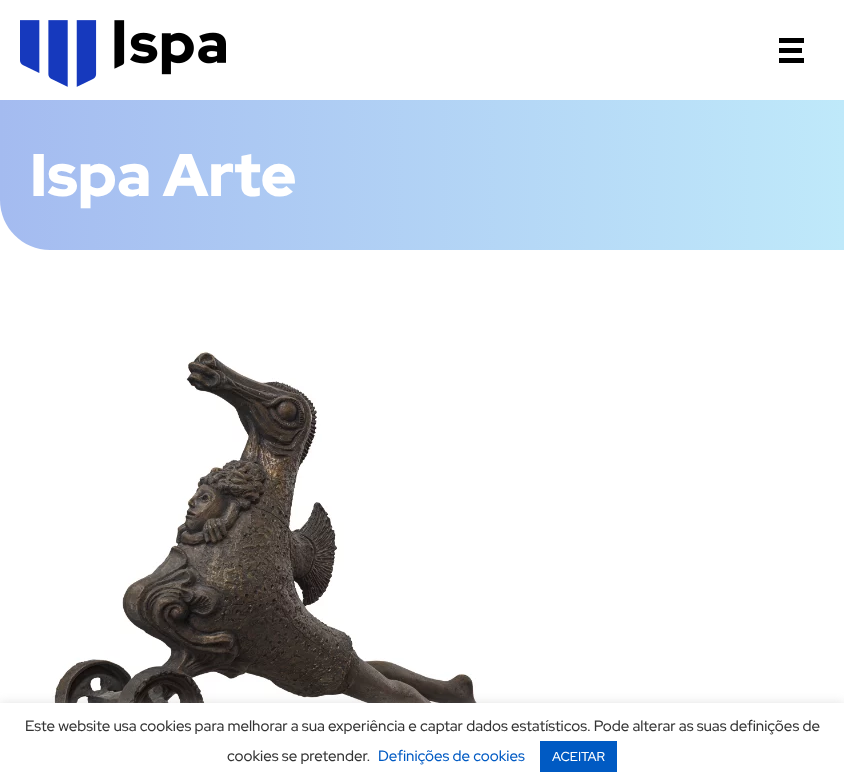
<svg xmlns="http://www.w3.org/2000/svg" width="844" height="784">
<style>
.a{font:900 60px Red Hat Display;fill:#fff}
.b{font:500 15px Red Hat Display;fill:#333}
.c{font:500 15px Red Hat Display;fill:#005ac3}
.d{font:500 13px Red Hat Display;fill:#fff}
</style>
<defs>
<linearGradient id="g1" gradientUnits="userSpaceOnUse" x1="0" y1="175" x2="844" y2="175"><stop offset="0" stop-color="#a4bbf0"/><stop offset="1" stop-color="#bfe9fa"/></linearGradient>
</defs>
<rect width="100%" height="100%" fill="#fff"/>
<image href="1.png" x="20" y="20" width="206" height="67"/>
<path fill="#000" d="M779 48h23v5H779z"/>
<path fill="#000" d="M779 38h25v5H779z"/>
<path fill="#000" d="M779 58h25v5H779z"/>
<path fill="url(#g1)" d="M0 100h844v150h-794c-27.5 0-50-22.5-50-50z"/>
<image href="2.png" x="40" y="351" width="551" height="352"/>
<path fill="#acabab4d" filter="blur(5px)" d="M0 702h844v81H0z"/>
<path fill="#fff" d="M0 703h844v81H0z"/>
<path fill="#005ac3" d="M540 741h77v31H540z"/>
<text class="a" x="30" y="196">Ispa Arte</text>
<text class="b" x="25" y="731">Este website usa cookies para melhorar a sua experiência e captar dados estatísticos. Pode alterar as suas definições de</text>
<text class="b" x="227" y="761">cookies se pretender.</text>
<text class="c" x="378" y="761">Definições de cookies</text>
<text class="d" x="552" y="761">ACEITAR</text>
</svg>
